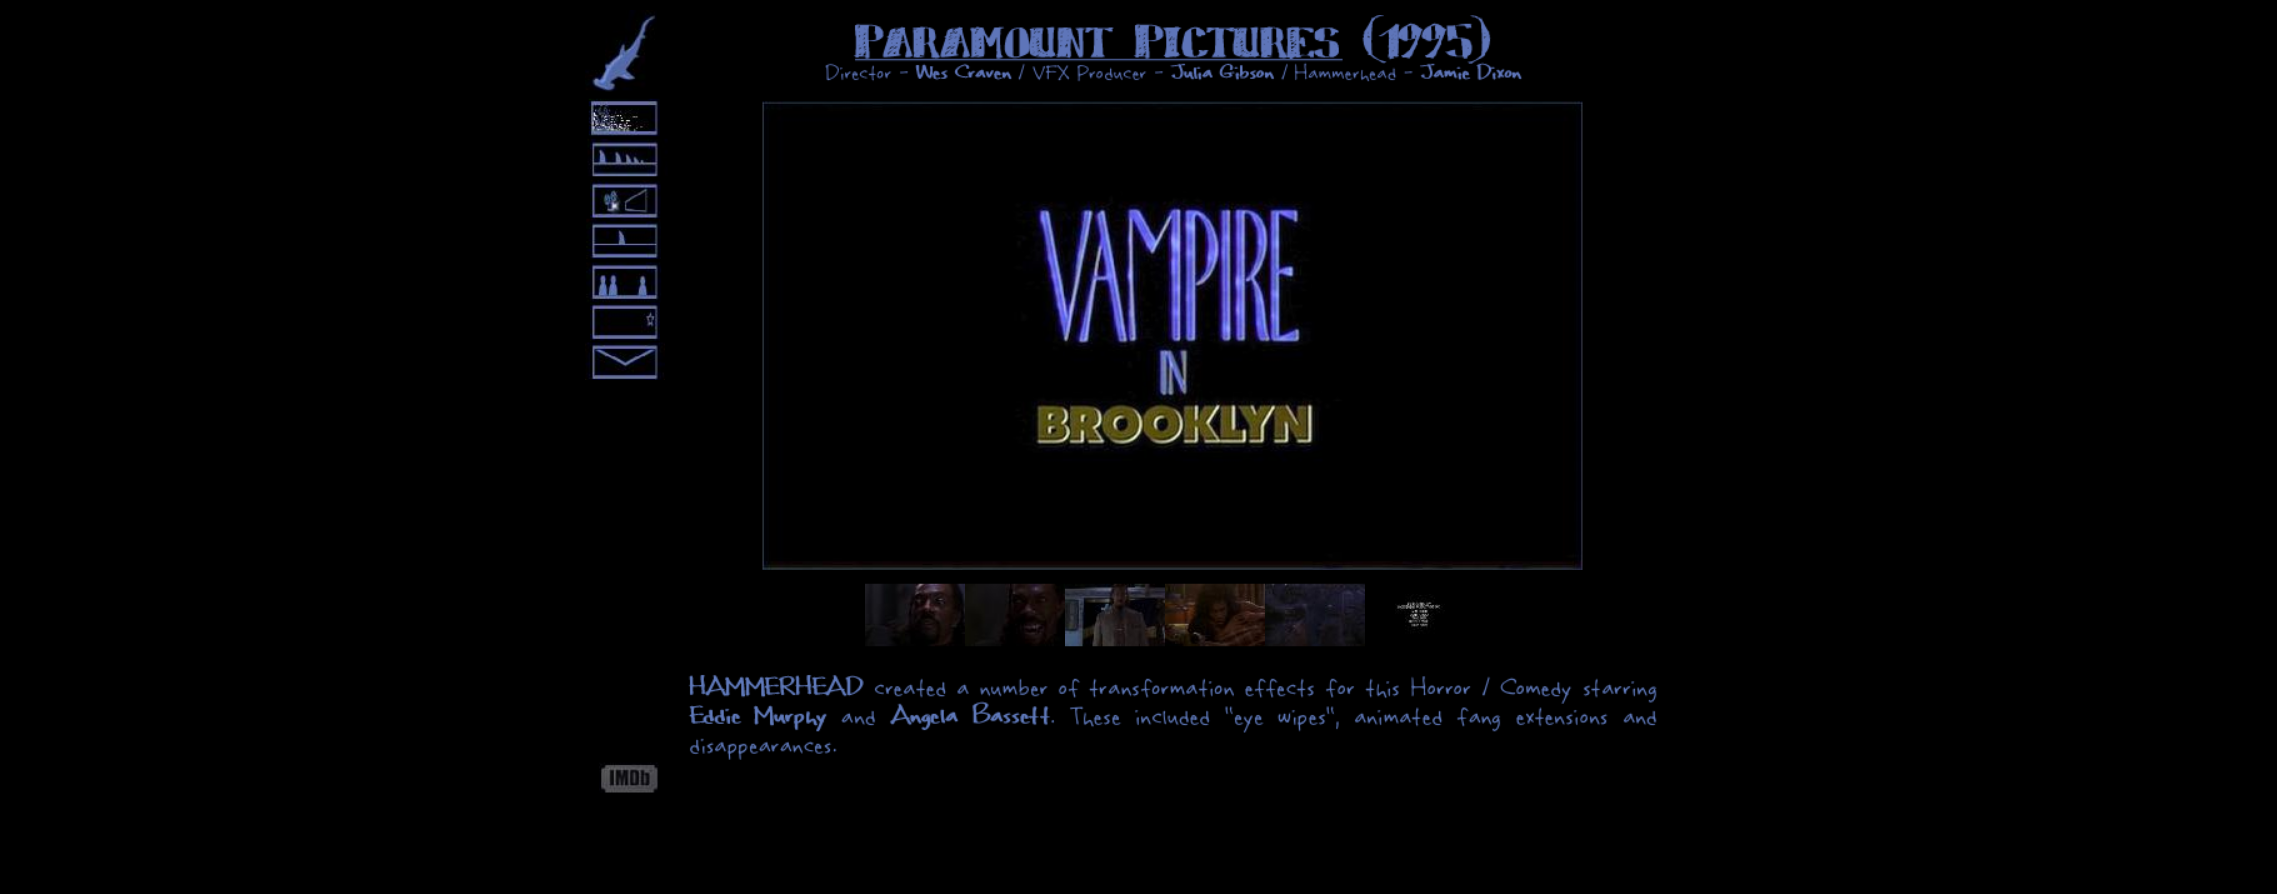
<svg xmlns="http://www.w3.org/2000/svg" width="2277" height="894">
<rect width="100%" height="100%" fill="#000"/>
<image href="1.png" x="585" y="10" width="72" height="82"/>
<image href="2.png" x="825" y="15" width="698" height="67"/>
<image href="3.png" x="588" y="98" width="72" height="39"/>
<image href="4.png" x="762" y="101" width="821" height="469"/>
<image href="5.png" x="587" y="138" width="81" height="39"/>
<image href="6.png" x="590" y="180" width="71" height="39"/>
<image href="7.png" x="586" y="218" width="75" height="41"/>
<image href="8.png" x="586" y="262" width="76" height="41"/>
<image href="9.png" x="590" y="302" width="70" height="40"/>
<image href="10.png" x="585" y="342" width="80" height="38"/>
<image href="11.png" x="865" y="583" width="100" height="64"/>
<image href="12.png" x="965" y="583" width="100" height="64"/>
<image href="13.png" x="1065" y="583" width="100" height="64"/>
<image href="14.png" x="1165" y="583" width="100" height="64"/>
<image href="15.png" x="1265" y="583" width="100" height="64"/>
<image href="16.png" x="1395" y="594" width="50" height="40"/>
<image href="17.png" x="688" y="674" width="969" height="86"/>
<image href="18.png" x="599" y="762" width="60" height="31"/>
</svg>
